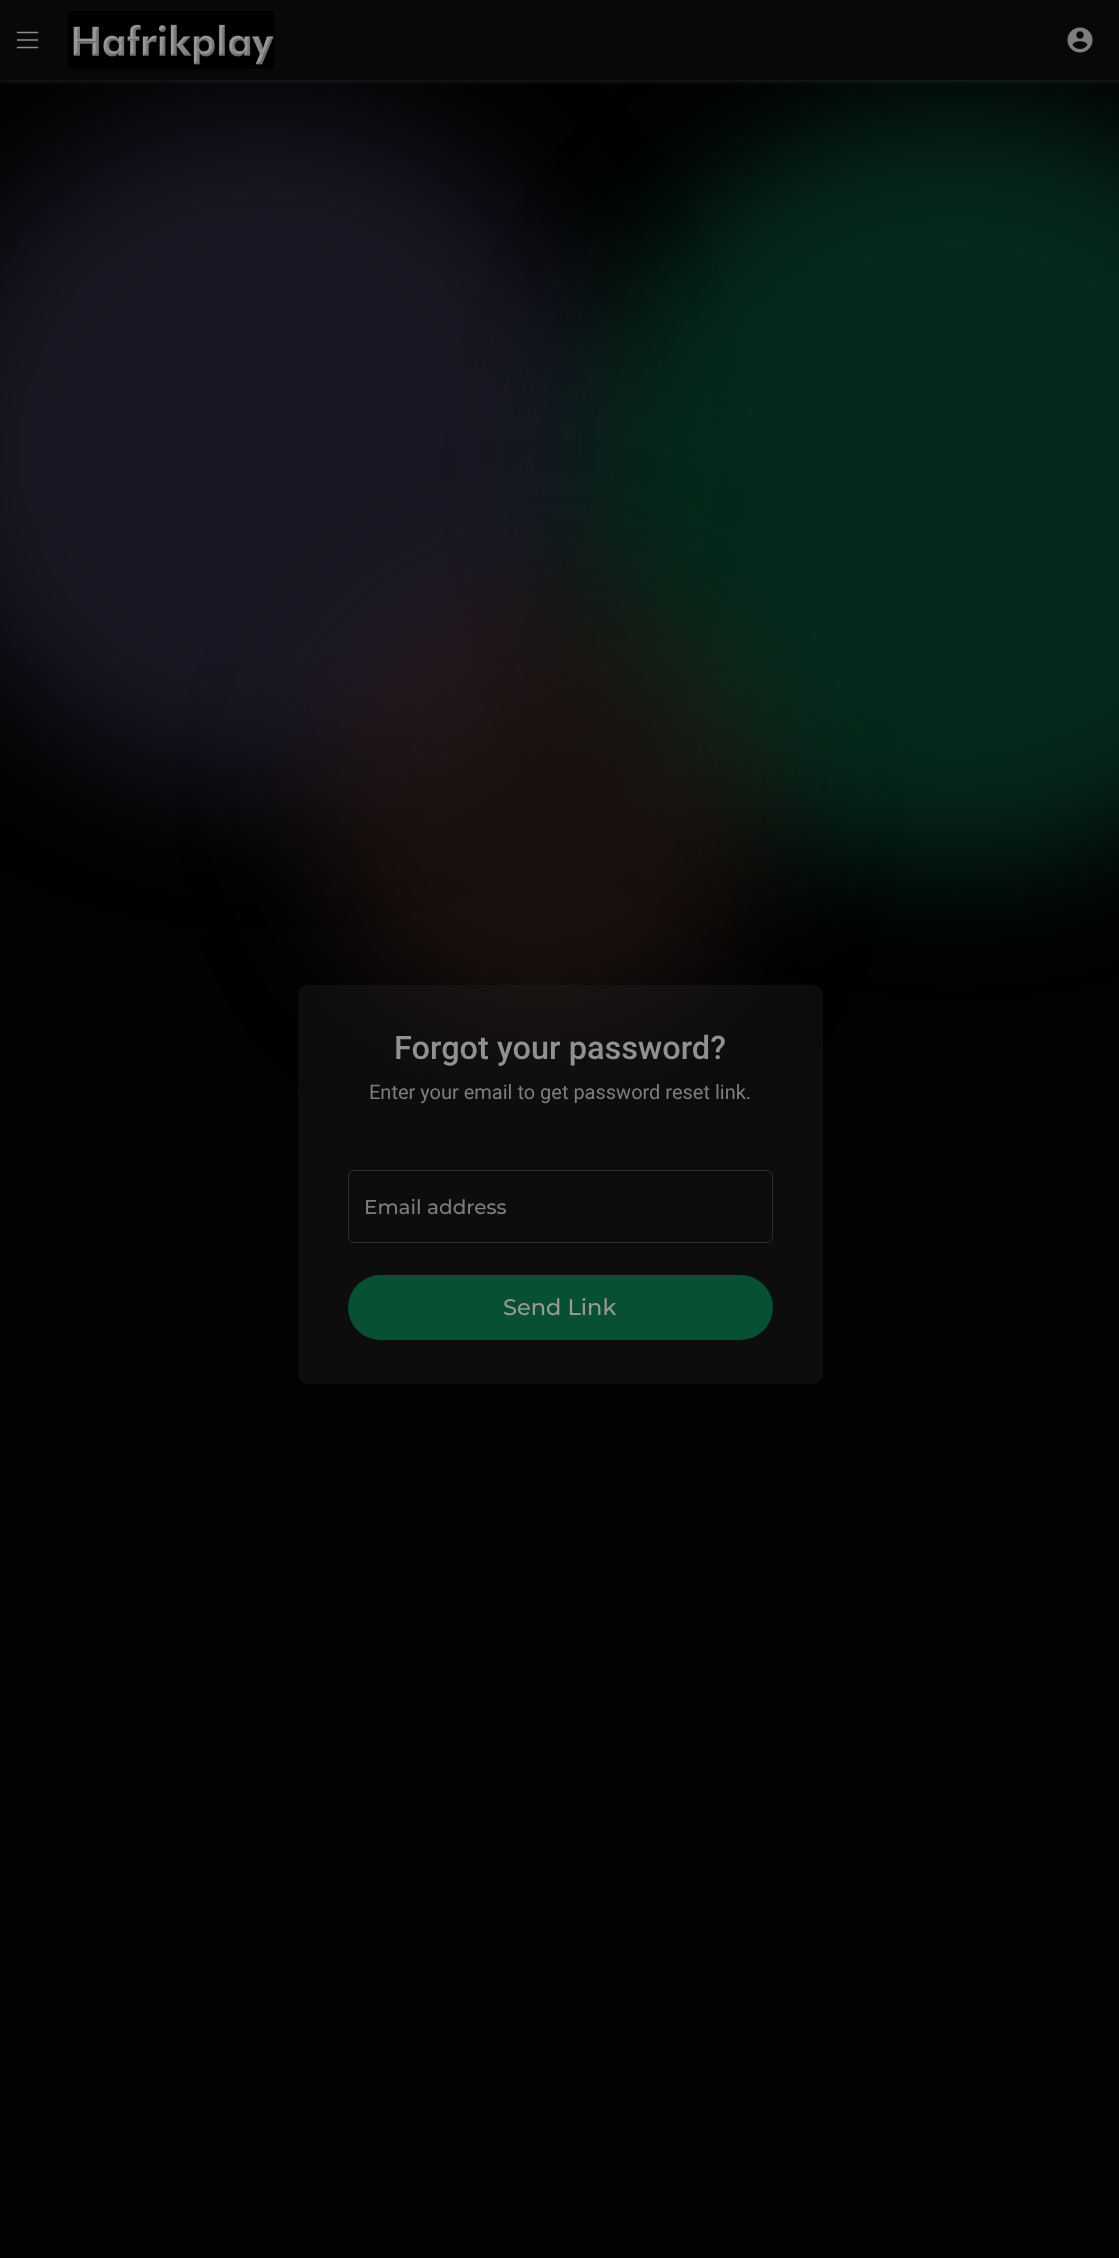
<svg xmlns="http://www.w3.org/2000/svg" width="1119" height="2258">
<style>
.a{font:500 32.5px Roboto;fill:#919191}
.b{font:20px Roboto;fill:#7e7e7e}
.c{font:500 20px Montserrat;fill:#7e7e7e}
.d{font:500 22.5px Montserrat;fill:#999}
</style>
<rect width="100%" height="100%" fill="#020202"/>
<path fill="#99999933" filter="blur(2.5px)" d="M0 1h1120v80H0z"/>
<rect fill="#191723" filter="blur(62.5px)" x="-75" y="111" width="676" height="677" rx="338"/>
<rect fill="#0d0d0d" x="298" y="985" width="525" height="399" rx="10"/>
<rect fill="#07503480" filter="blur(62.5px)" x="580" y="111" width="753" height="753" rx="376.5"/>
<path fill="#080808" d="M0 0h1119v80H0z"/>
<path fill="none" stroke="#8d8d8d" stroke-width="1.6" stroke-linecap="round" stroke-linejoin="round" d="M17.5 32.5h20m-20 7.5h20m-20 7.5h20"/>
<image href="1.png" x="67" y="11" width="207" height="58"/>
<image href="2.png" x="1067" y="27" width="26" height="26"/>
<rect fill="#301f1c80" filter="blur(62.5px)" x="313" y="574" width="453" height="454" rx="226.5"/>
<rect fill="none" stroke="#2f2f2f" x="348.5" y="1170.5" width="424" height="72" rx="5.5"/>
<rect fill="#075034" x="348" y="1275" width="425" height="65" rx="32.5"/>
<text class="a" x="394" y="1059">Forgot your password?</text>
<text class="b" x="369" y="1099">Enter your email to get password reset link.</text>
<text class="c" x="364" y="1214">Email address</text>
<text class="d" x="503" y="1315">Send Link</text>
</svg>
